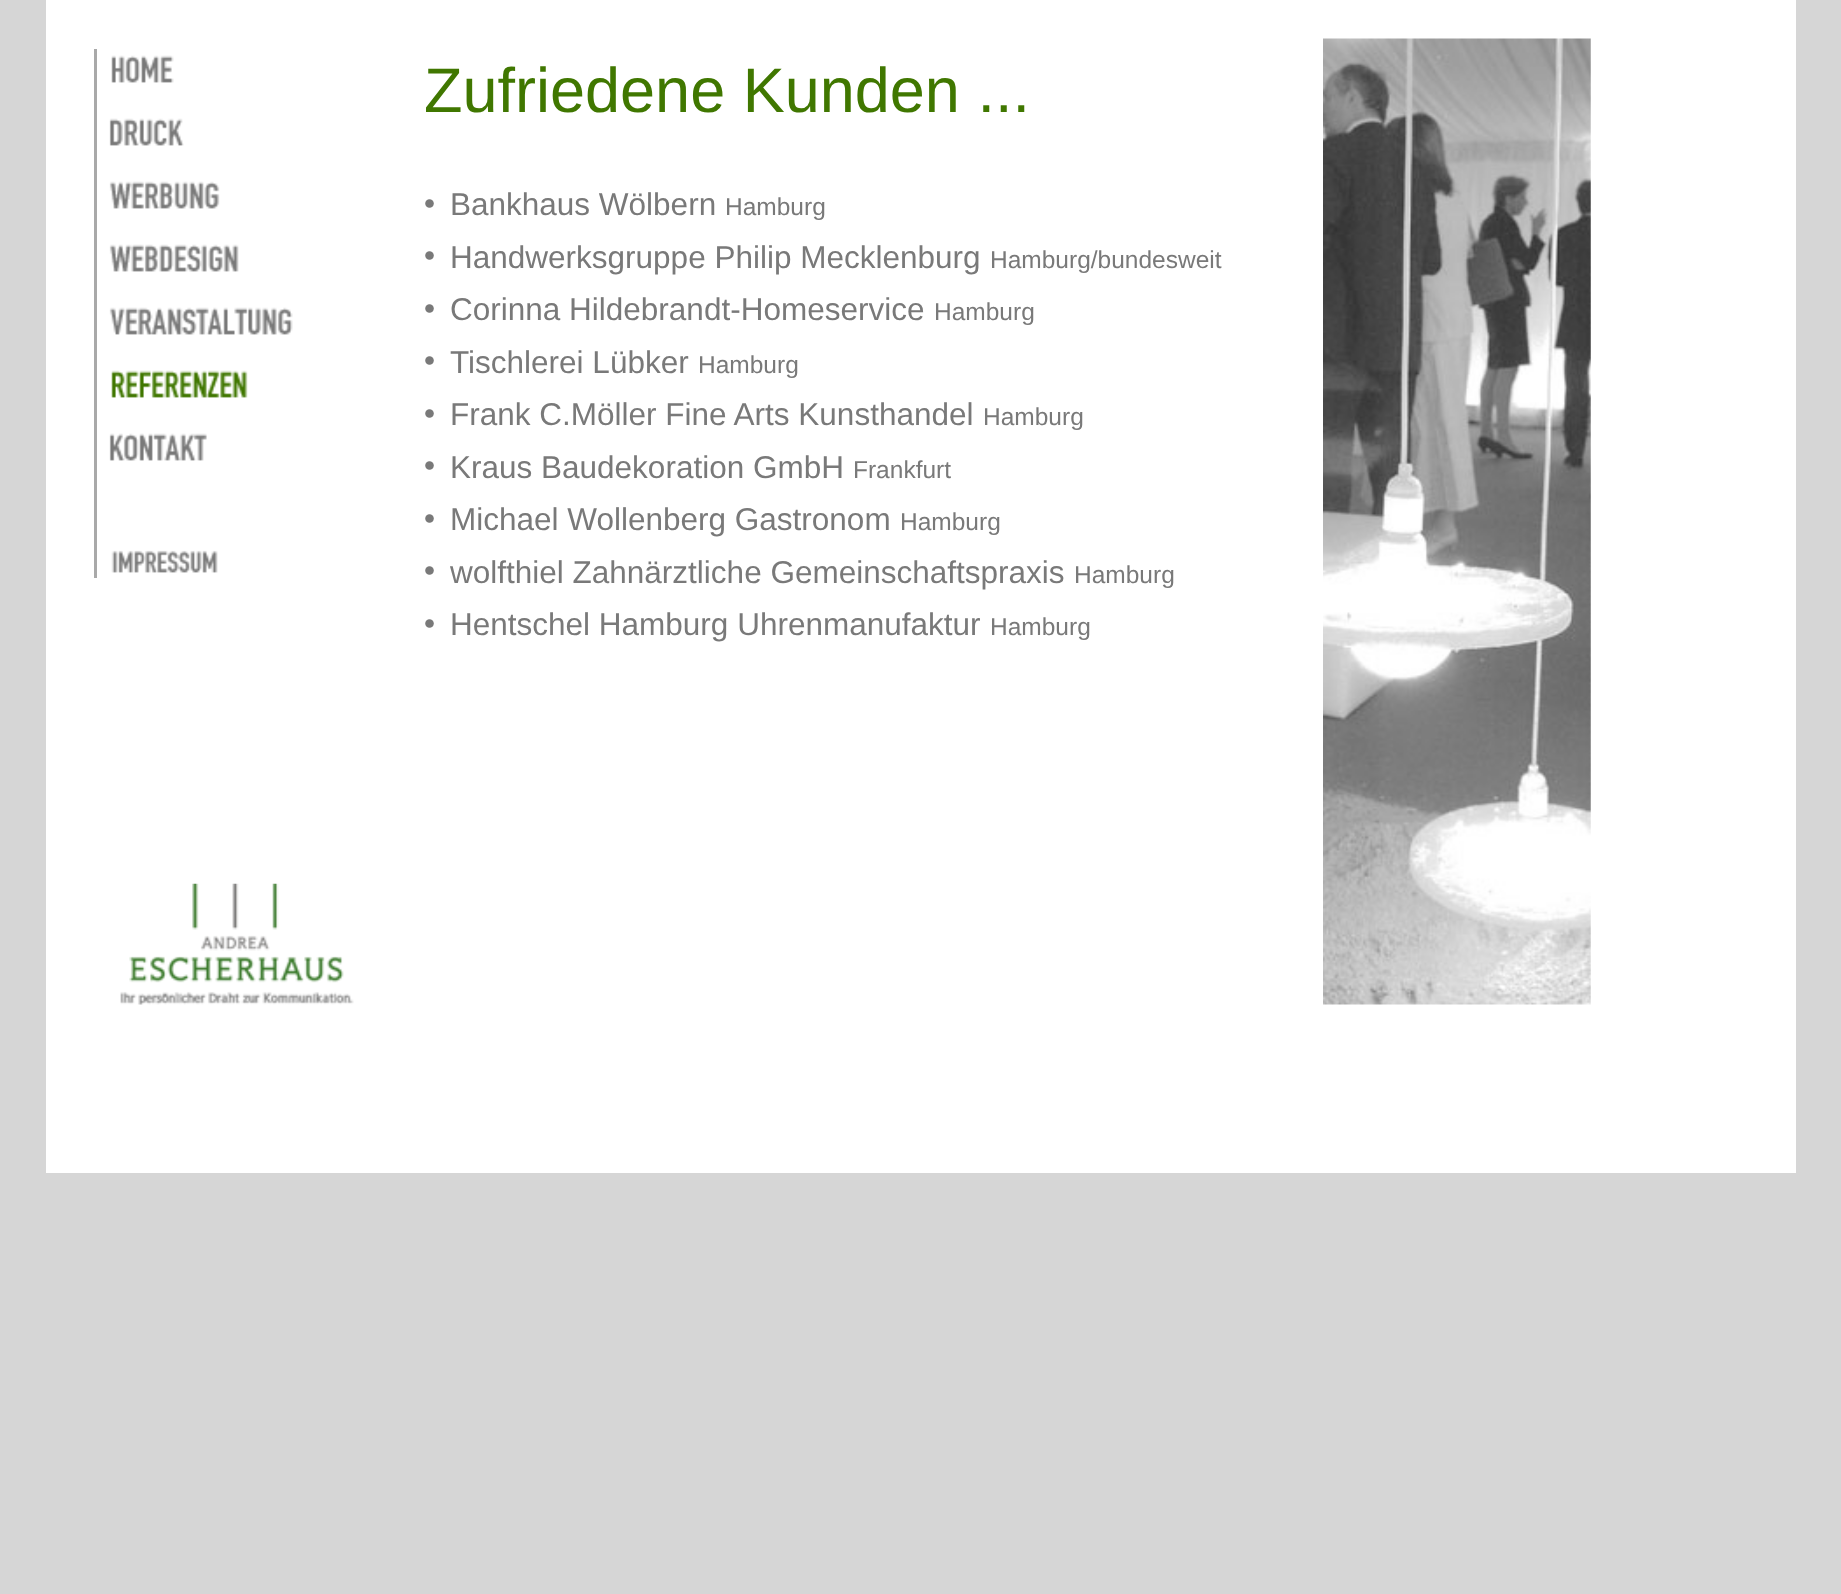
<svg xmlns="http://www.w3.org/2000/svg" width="1841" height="1594">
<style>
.a{font:63px Liberation Sans;fill:#407700}
.b{font:31.5px Liberation Sans;fill:#797979}
.c{font:24.5px Liberation Sans;fill:#797979}
</style>
<rect width="100%" height="100%" fill="#d6d6d6"/>
<path fill="#fff" d="M46 0h1750v1173H46z"/>
<path fill="#a9a9a9" d="M94 49h3v529H94z"/>
<image href="1.png" x="111" y="55" width="63" height="28"/>
<image href="2.png" x="1323" y="38" width="268" height="967"/>
<image href="3.png" x="109" y="118" width="75" height="28"/>
<image href="4.png" x="109" y="181" width="111" height="28"/>
<image href="5.png" x="109" y="244" width="130" height="28"/>
<image href="6.png" x="109" y="307" width="184" height="28"/>
<image href="7.png" x="111" y="370" width="137" height="28"/>
<image href="8.png" x="109" y="433" width="98" height="28"/>
<image href="9.png" x="111" y="550" width="107" height="23"/>
<image href="10.png" x="120" y="883" width="234" height="122"/>
<text class="a" x="424" y="112">Zufriedene Kunden ...</text>
<text class="b" x="424" y="214">•</text>
<text class="b" x="450" y="215">Bankhaus Wölbern</text>
<text class="c" x="725" y="215">Hamburg</text>
<text class="b" x="424" y="266">•</text>
<text class="b" x="450" y="268">Handwerksgruppe Philip Mecklenburg</text>
<text class="c" x="990" y="268">Hamburg/bundesweit</text>
<text class="b" x="424" y="319">•</text>
<text class="b" x="450" y="320">Corinna Hildebrandt-Homeservice</text>
<text class="c" x="934" y="320">Hamburg</text>
<text class="b" x="424" y="371">•</text>
<text class="b" x="450" y="373">Tischlerei Lübker</text>
<text class="c" x="698" y="373">Hamburg</text>
<text class="b" x="424" y="424">•</text>
<text class="b" x="450" y="425">Frank C.Möller Fine Arts Kunsthandel</text>
<text class="c" x="983" y="425">Hamburg</text>
<text class="b" x="424" y="476">•</text>
<text class="b" x="450" y="478">Kraus Baudekoration GmbH</text>
<text class="c" x="853" y="478">Frankfurt</text>
<text class="b" x="424" y="529">•</text>
<text class="b" x="450" y="530">Michael Wollenberg Gastronom</text>
<text class="c" x="900" y="530">Hamburg</text>
<text class="b" x="424" y="581">•</text>
<text class="b" x="450" y="583">wolfthiel Zahnärztliche Gemeinschaftspraxis</text>
<text class="c" x="1074" y="583">Hamburg</text>
<text class="b" x="424" y="634">•</text>
<text class="b" x="450" y="635">Hentschel Hamburg Uhrenmanufaktur</text>
<text class="c" x="990" y="635">Hamburg</text>
</svg>
